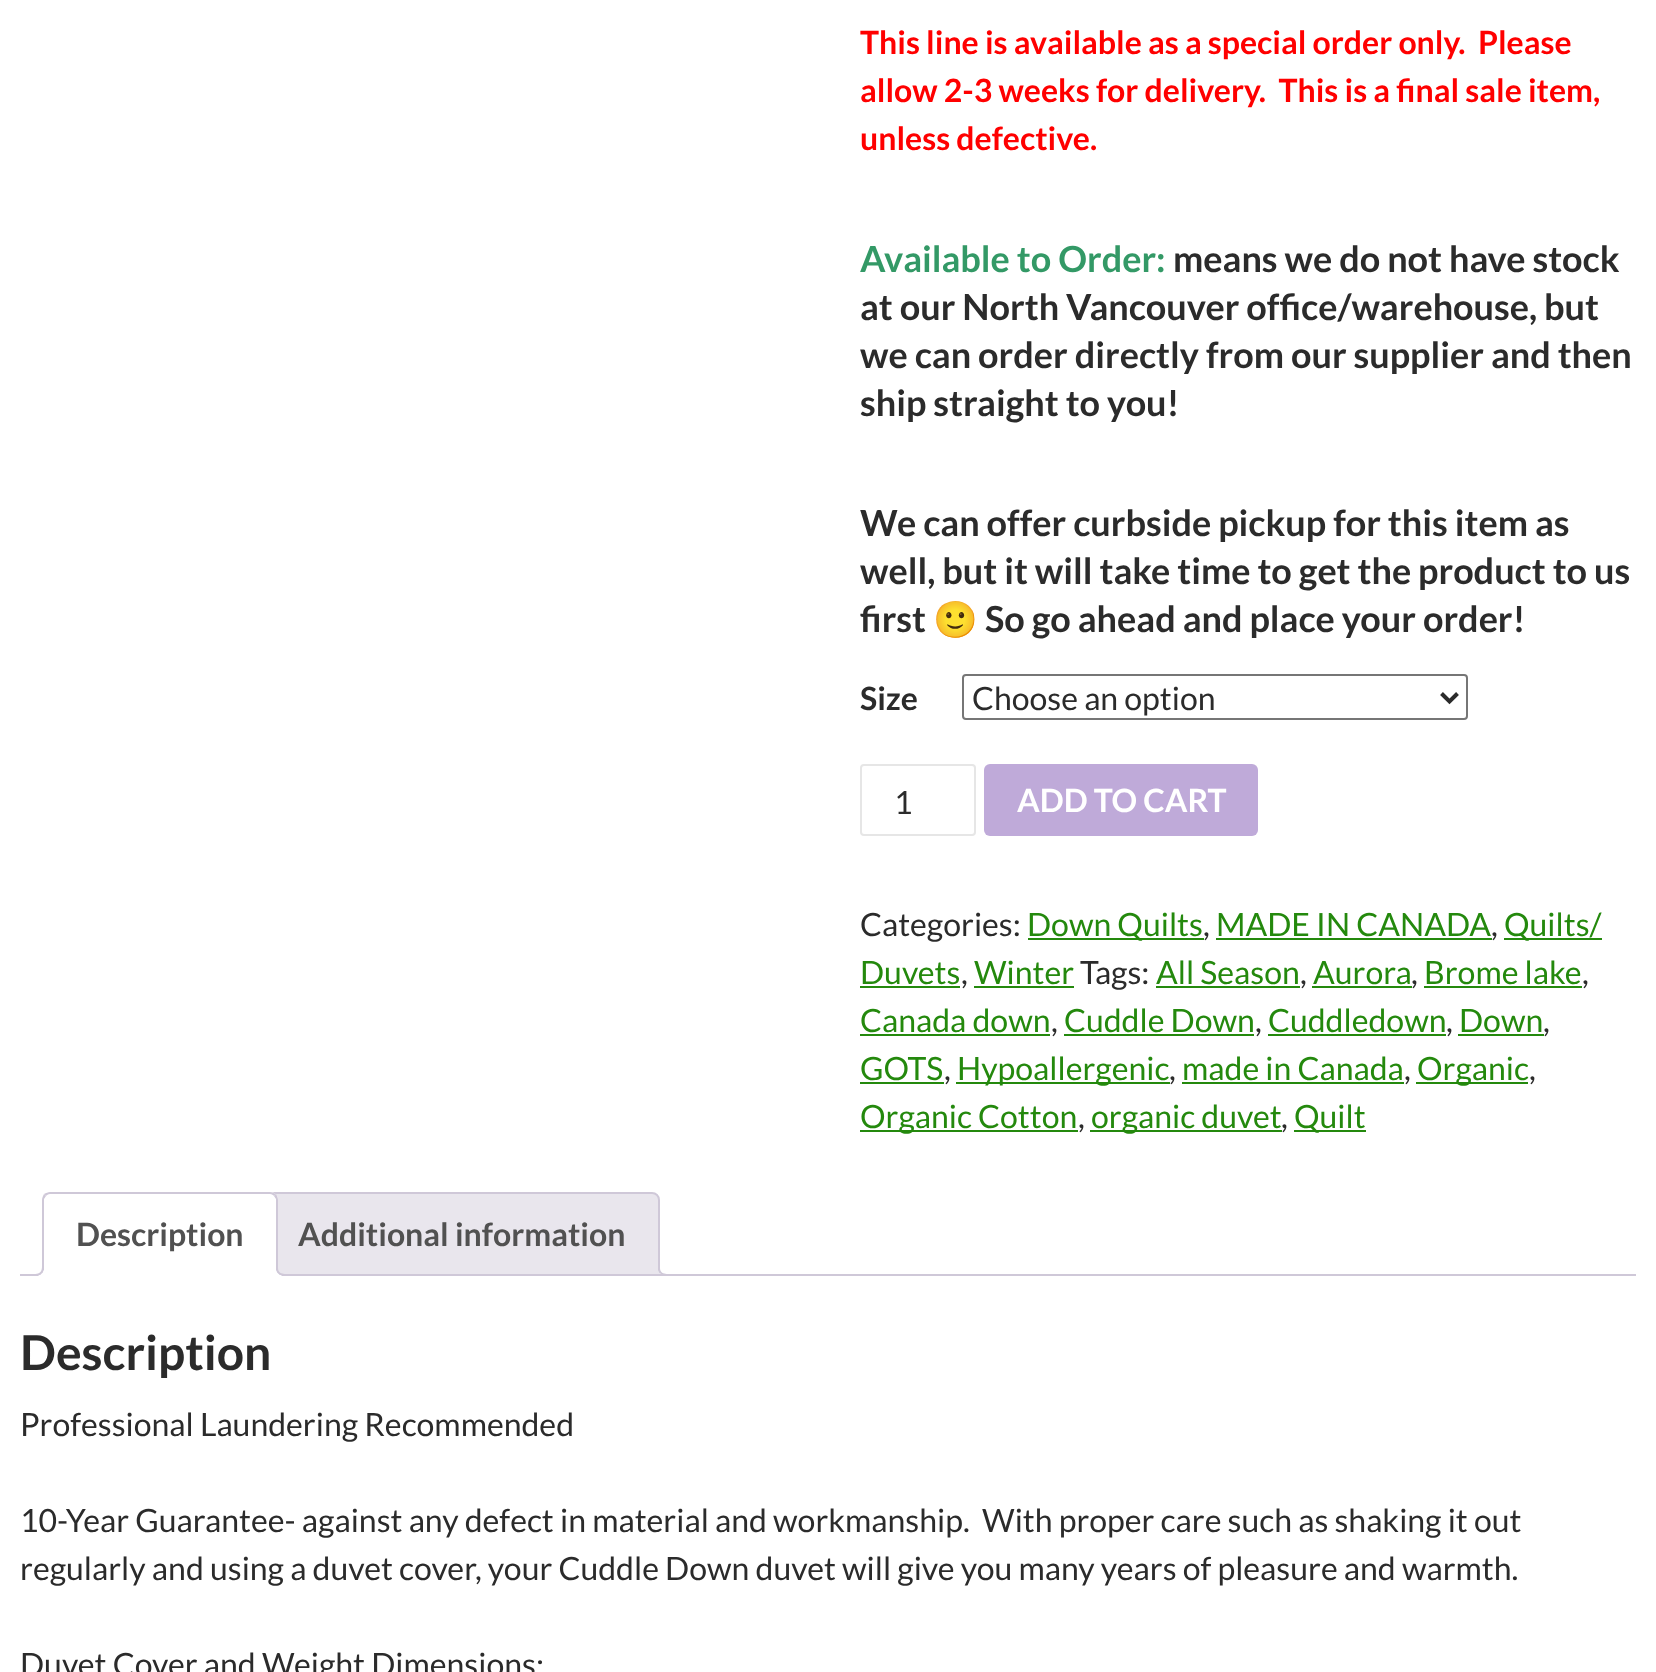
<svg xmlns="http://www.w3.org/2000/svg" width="1656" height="1672">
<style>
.a{font:bold 32px Lato;fill:#f00}
.b{font:bold 36px Lato;fill:#396}
.c{font:bold 36px Lato;fill:#2b2b2b}
.d{font:bold 36px Noto Color Emoji;fill:#2b2b2b}
.e{font:bold 32px Lato;fill:#2b2b2b}
.f{font:32px Lato;fill:#2b2b2b}
.g{font:bold 32px Lato;fill:#fff}
.h{font:32px Lato;fill:#24890d}
.i{font:bold 32px Lato;fill:#515151}
.j{font:bold 48px Lato;fill:#2b2b2b}
</style>
<defs>
<clipPath id="clip1"><path d="M20 1192h1616v84H20z"/></clipPath>
</defs>
<rect width="100%" height="100%" fill="#fff"/>
<rect fill="none" stroke="#767676" stroke-width="2" x="963" y="675" width="504" height="44" rx="3"/>
<path fill="none" stroke="#2b2b2b" stroke-width="4" d="M1441.5 693.5l8 8l8-8"/>
<rect fill="none" stroke="#e6e6e6" stroke-width="2" x="861" y="765" width="114" height="70" rx="3"/>
<rect fill="#bfaad9" x="984" y="764" width="274" height="72" rx="6"/>
<path fill="#24890d" d="M1028 938h176v2H1028z"/>
<path fill="#24890d" d="M1216 938h276v2H1216z"/>
<path fill="#24890d" d="M1504 938h98v2H1504z"/>
<path fill="#24890d" d="M860 986h100v2H860z"/>
<path fill="#24890d" d="M974 986h100v2H974z"/>
<path fill="#24890d" d="M1156 986h144v2H1156z"/>
<path fill="#24890d" d="M1312 986h100v2H1312z"/>
<path fill="#24890d" d="M1424 986h158v2H1424z"/>
<path fill="#24890d" d="M860 1034h190v2H860z"/>
<path fill="#24890d" d="M1064 1034h190v2H1064z"/>
<path fill="#24890d" d="M1268 1034h178v2H1268z"/>
<path fill="#24890d" d="M1458 1034h86v2H1458z"/>
<path fill="#24890d" d="M860 1082h84v2H860z"/>
<path fill="#24890d" d="M956 1082h214v2H956z"/>
<path fill="#24890d" d="M1182 1082h222v2H1182z"/>
<path fill="#24890d" d="M1416 1082h112v2H1416z"/>
<path fill="#24890d" d="M860 1130h218v2H860z"/>
<path fill="#24890d" d="M1090 1130h192v2H1090z"/>
<path fill="#24890d" d="M1294 1130h72v2H1294z"/>
<path fill="#e9e6ed" stroke="#cfc8d8" stroke-width="2" d="M272 1193h380c4 0 7 3 7 7v75h-394v-75c0-4 3-7 7-7z"/>
<g clip-path="url(#clip1)">
<path fill="#e9e6ed" d="M654 1270c0 7 3 10 10 10v-4.5c-3-.5-5-2.5-5.5-5.5z"/>
</g>
<path fill="#cfc8d8" fill-rule="evenodd" d="M658 1266h10v10c-5 0-10-2-10-8zm2 0h8v8c-4 0-8-1-8-6z"/>
<path fill="#cfc8d8" d="M20 1274h1616v2H20z"/>
<path fill="#fff" d="M50 1192h220c4.5 0 8 3.5 8 8v76h-236v-76c0-4.5 3.5-8 8-8z"/>
<path fill="#cfc8d8" d="M50 1192c-2 0-4 1-6 2l2 2c1-1 2-2 4-2h220c2 0 3 1 4 2l2-2c-2-1-4-2-6-2z"/>
<path fill="#cfc8d8" d="M278 1276v-76c0-2-1-4-2-6l-2 2l2 3v75z"/>
<path fill="#fff" d="M278 1276l-2-2h-232l-2 2z"/>
<path fill="#cfc8d8" d="M42 1276l2-2v-75l2-3l-2-2c-1 2-2 4-2 6z"/>
<g clip-path="url(#clip1)">
<path fill="#fff" d="M38 1275.5v4.5c7 0 10-3 10-10h-4.5c-.5 3-2.5 5-5.5 5.5z"/>
</g>
<path fill="#cfc8d8" fill-rule="evenodd" d="M34 1266h10c0 7-3 10-10 10zm0 0h8c0 6-2 8-8 8z"/>
<g clip-path="url(#clip1)">
<path fill="#fff" d="M272 1270c0 7 3 10 10 10v-4.5c-3-.5-5-2.5-5.5-5.5z"/>
</g>
<path fill="#cfc8d8" fill-rule="evenodd" d="M276 1266h10v10c-5 0-10-2-10-8zm2 0h8v8c-4 0-8-1-8-6z"/>
<text class="a" xml:space="preserve" x="860" y="54">This line is available as a special order only.  Please</text>
<text class="a" xml:space="preserve" x="860" y="102">allow 2-3 weeks for delivery.  This is a final sale item,</text>
<text class="a" x="860" y="150">unless defective.</text>
<text class="b" x="860" y="272">Available to Order:</text>
<text class="c" x="1173" y="272">means we do not have stock</text>
<text class="c" x="860" y="320">at our North Vancouver office/warehouse, but</text>
<text class="c" x="860" y="368">we can order directly from our supplier and then</text>
<text class="c" x="860" y="416">ship straight to you!</text>
<text class="c" x="860" y="536">We can offer curbside pickup for this item as</text>
<text class="c" x="860" y="584">well, but it will take time to get the product to us</text>
<text class="c" x="860" y="632">first</text>
<text class="d" x="933" y="632">🙂</text>
<text class="c" x="985" y="632">So go ahead and place your order!</text>
<text class="e" x="860" y="710">Size</text>
<text class="f" x="972" y="710">Choose an option</text>
<text class="f" x="894" y="814">1</text>
<text class="g" x="1017" y="812">ADD TO CART</text>
<text class="f" x="860" y="936">Categories:</text>
<text class="h" x="1027" y="936">Down Quilts</text>
<text class="f" x="1203" y="936">,</text>
<text class="h" x="1216" y="936">MADE IN CANADA</text>
<text class="f" x="1491" y="936">,</text>
<text class="h" x="1504" y="936">Quilts/</text>
<text class="h" x="860" y="984">Duvets</text>
<text class="f" x="961" y="984">,</text>
<text class="h" x="974" y="984">Winter</text>
<text class="f" x="1080" y="984">Tags:</text>
<text class="h" x="1156" y="984">All Season</text>
<text class="f" x="1300" y="984">,</text>
<text class="h" x="1313" y="984">Aurora</text>
<text class="f" x="1411" y="984">,</text>
<text class="h" x="1424" y="984">Brome lake</text>
<text class="f" x="1582" y="984">,</text>
<text class="h" x="860" y="1032">Canada down</text>
<text class="f" x="1051" y="1032">,</text>
<text class="h" x="1064" y="1032">Cuddle Down</text>
<text class="f" x="1255" y="1032">,</text>
<text class="h" x="1268" y="1032">Cuddledown</text>
<text class="f" x="1446" y="1032">,</text>
<text class="h" x="1459" y="1032">Down</text>
<text class="f" x="1543" y="1032">,</text>
<text class="h" x="860" y="1080">GOTS</text>
<text class="f" x="944" y="1080">,</text>
<text class="h" x="957" y="1080">Hypoallergenic</text>
<text class="f" x="1169" y="1080">,</text>
<text class="h" x="1182" y="1080">made in Canada</text>
<text class="f" x="1404" y="1080">,</text>
<text class="h" x="1417" y="1080">Organic</text>
<text class="f" x="1529" y="1080">,</text>
<text class="h" x="860" y="1128">Organic Cotton</text>
<text class="f" x="1078" y="1128">,</text>
<text class="h" x="1091" y="1128">organic duvet</text>
<text class="f" x="1281" y="1128">,</text>
<text class="h" x="1294" y="1128">Quilt</text>
<text class="i" x="76" y="1246">Description</text>
<text class="i" x="298" y="1246">Additional information</text>
<text class="j" x="20" y="1370">Description</text>
<text class="f" x="20" y="1436">Professional Laundering Recommended</text>
<text class="f" xml:space="preserve" x="20" y="1532">10-Year Guarantee- against any defect in material and workmanship.  With proper care such as shaking it out</text>
<text class="f" x="20" y="1580">regularly and using a duvet cover, your Cuddle Down duvet will give you many years of pleasure and warmth.</text>
<text class="f" x="20" y="1676">Duvet Cover and Weight Dimensions:</text>
</svg>
